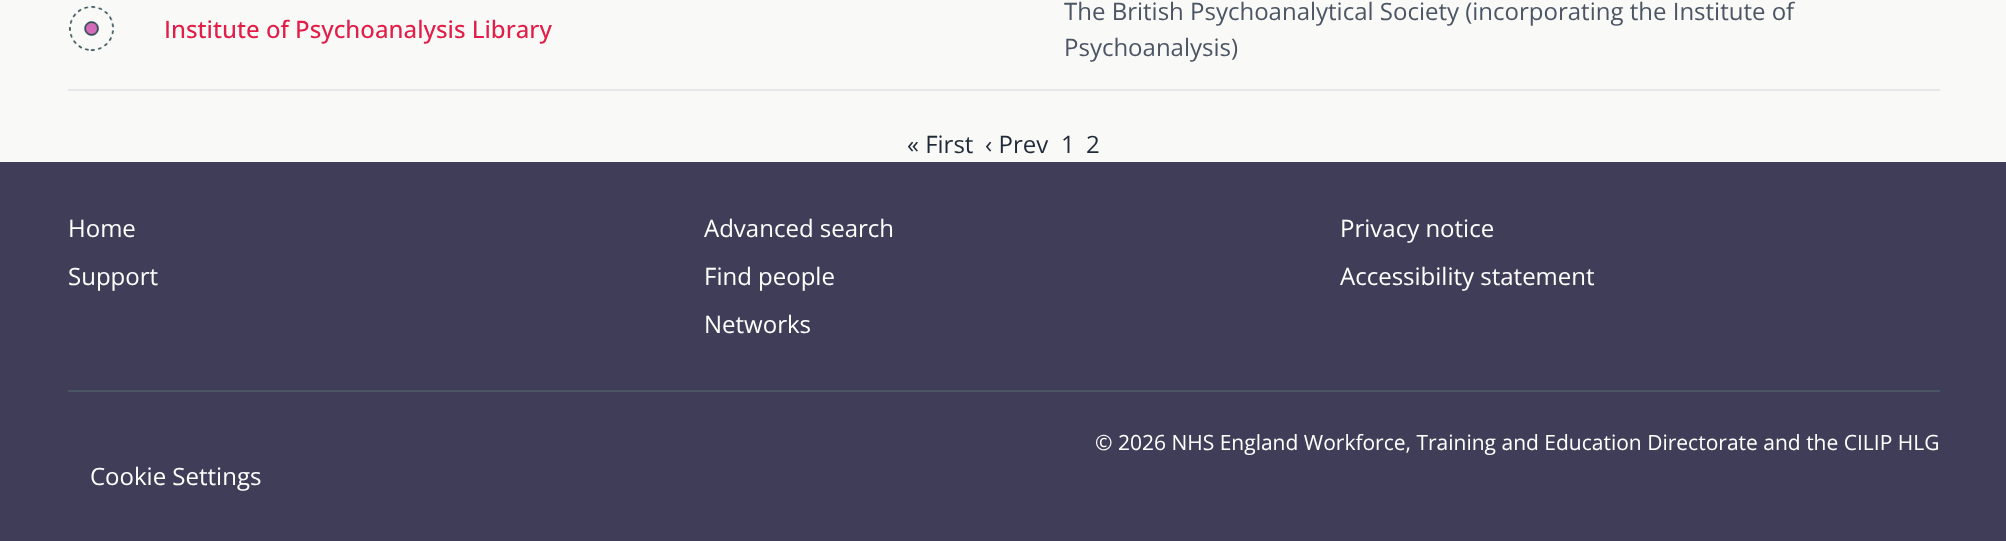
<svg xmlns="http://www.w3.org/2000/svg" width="2006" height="541">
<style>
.a{font:500 24px Open Sans;fill:#e11d48}
.b{font:24px Open Sans;fill:#4b5563}
.c{font:24px Open Sans;fill:#1f2937}
.d{font:24px Open Sans;fill:#fff}
.e{font:21px Open Sans;fill:#fff}
</style>
<rect width="100%" height="100%" fill="#f9f9f7"/>
<path fill="#e5e7eb" d="M68 89h1872v2H68z"/>
<image href="1.png" x="69" y="6" width="45" height="45"/>
<path fill="#403d58" d="M0 162h2006v379H0z"/>
<path fill="#4b5563" d="M68 390h1872v2H68z"/>
<text class="a" x="164" y="38">Institute of Psychoanalysis Library</text>
<text class="b" x="1064" y="20">The British Psychoanalytical Society (incorporating the Institute of</text>
<text class="b" x="1064" y="56">Psychoanalysis)</text>
<text class="c" x="907" y="153">« First</text>
<text class="c" x="985" y="153">‹ Prev</text>
<text class="c" x="1061" y="153">1</text>
<text class="c" x="1086" y="153">2</text>
<text class="d" x="68" y="237">Home</text>
<text class="d" x="68" y="285">Support</text>
<text class="d" x="704" y="237">Advanced search</text>
<text class="d" x="704" y="285">Find people</text>
<text class="d" x="704" y="333">Networks</text>
<text class="d" x="1340" y="237">Privacy notice</text>
<text class="d" x="1340" y="285">Accessibility statement</text>
<text class="e" x="1095" y="450">© 2026 NHS England Workforce, Training and Education Directorate and the CILIP HLG</text>
<text class="d" x="90" y="485">Cookie Settings</text>
</svg>
